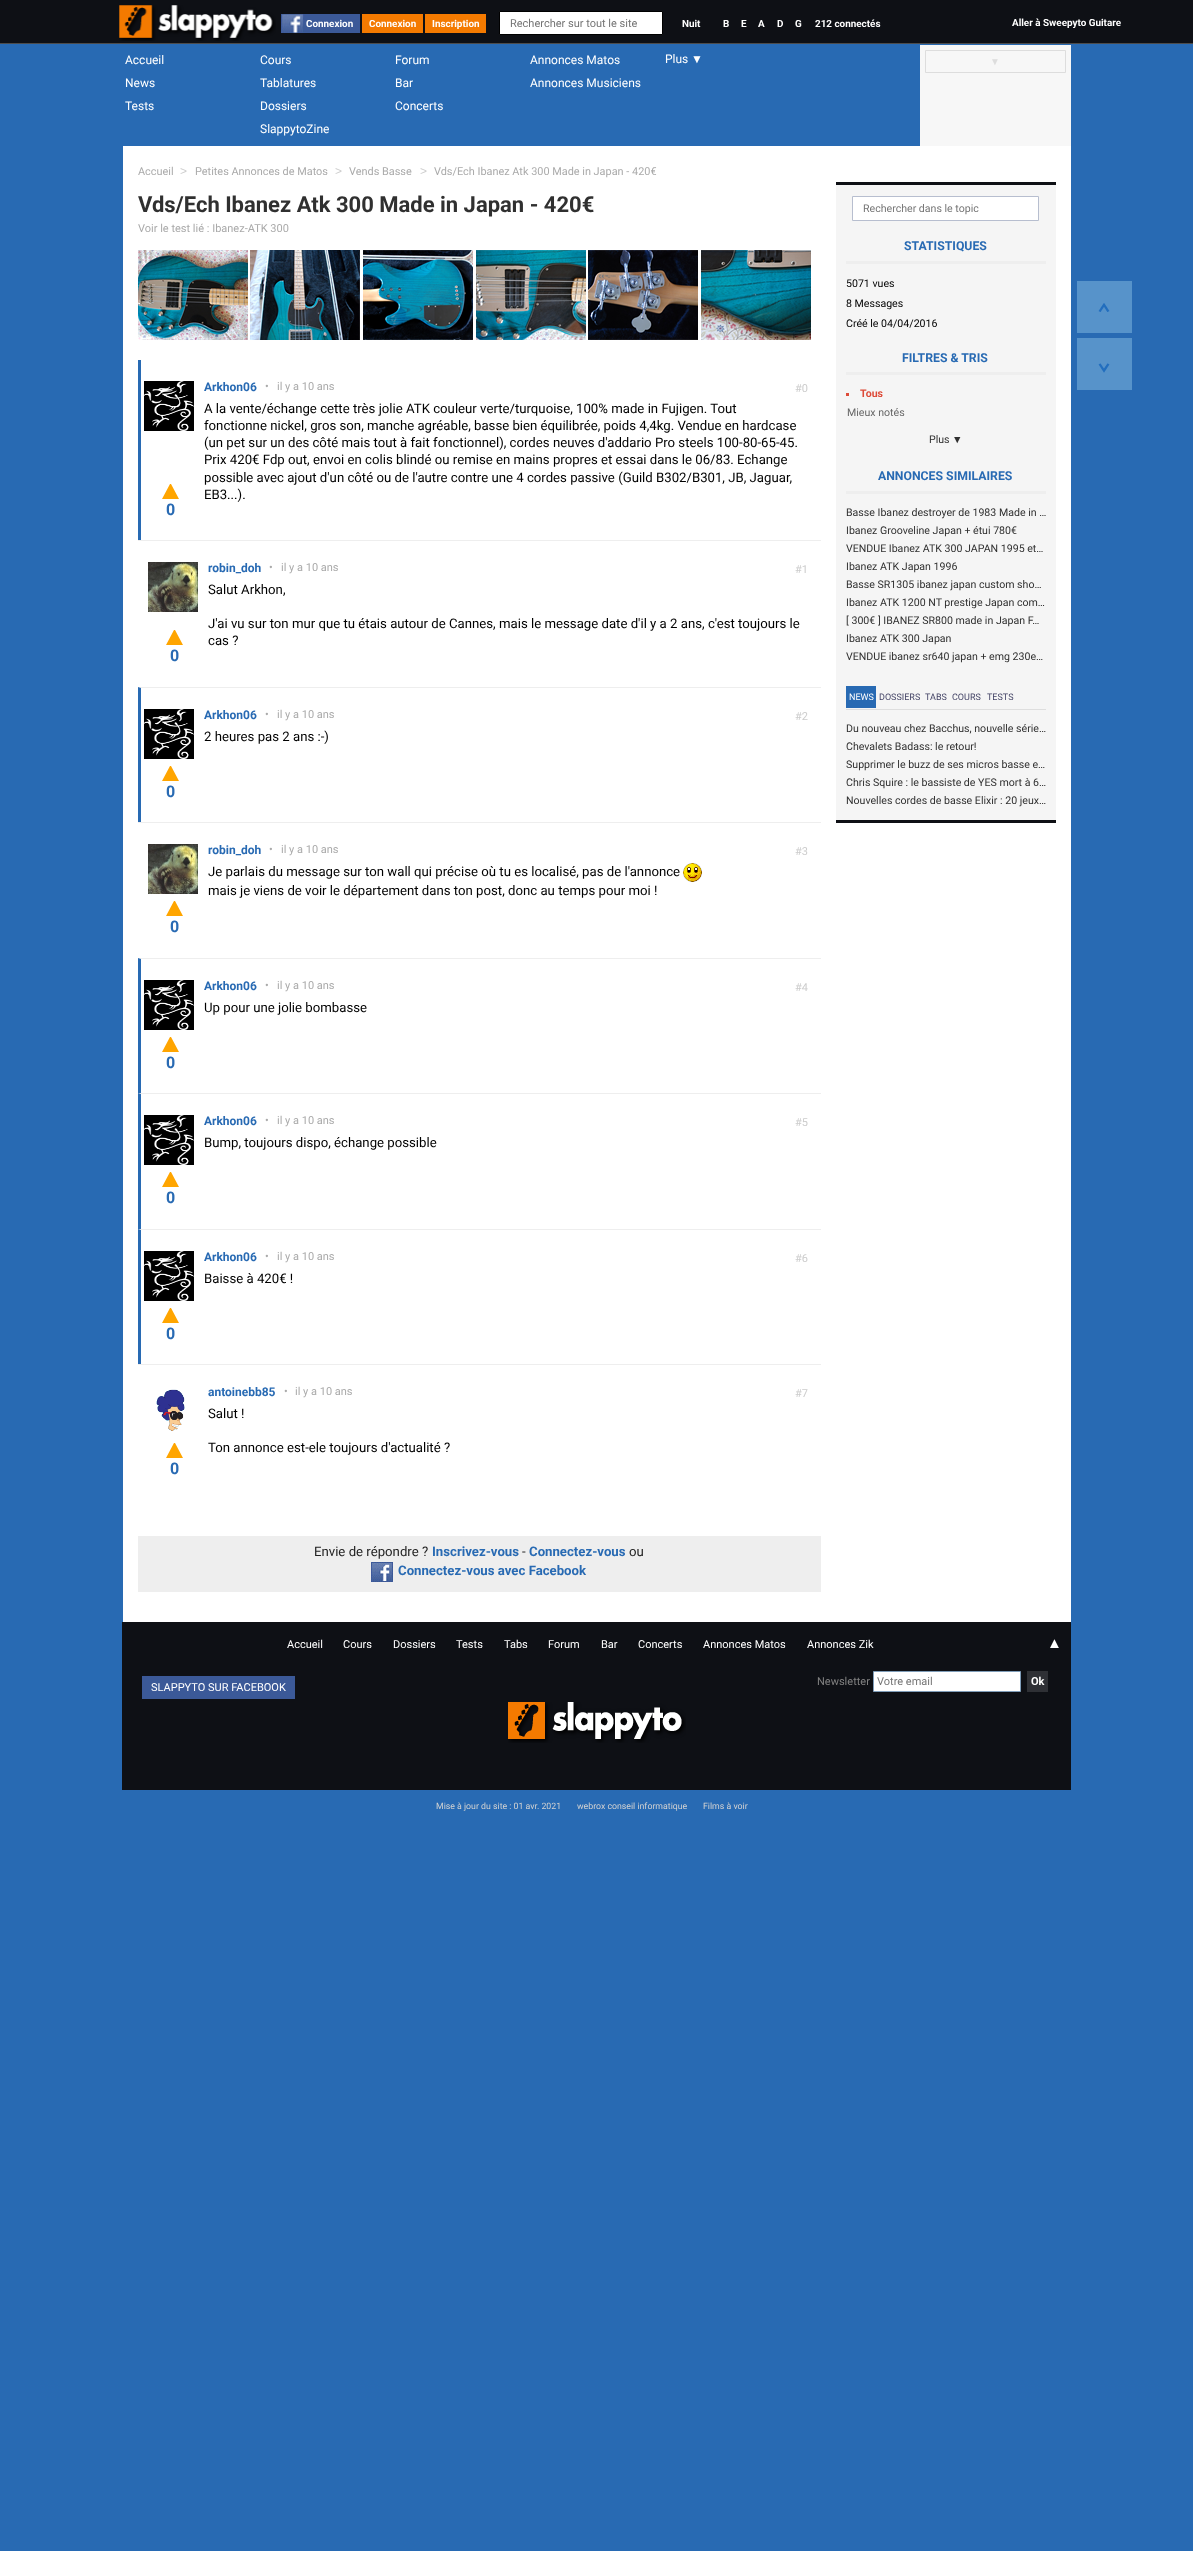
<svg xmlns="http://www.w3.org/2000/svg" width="1193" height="2551">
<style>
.a{font:bold 9.9px Roboto;fill:#fff}
.b{font:11px Roboto;fill:#757575}
.c{font:12px Roboto;fill:#fff}
.d{font:12px Liberation Sans;fill:#fff}
.e{font:9.9px Liberation Sans;fill:#ddd}
.f{font:10.9px Roboto;fill:#aaa}
.g{font:12px Liberation Sans;fill:#ccc}
.h{font:bold 22px Roboto;fill:#303030}
.i{font:11px Roboto;fill:#aaa}
.j{font:10.6px Roboto;fill:#757575}
.k{font:bold 12.25px Roboto;fill:#286ab3}
.l{font:10.6px Roboto;fill:#000}
.m{font:bold 10.6px Roboto;fill:#dd4b39}
.n{font:10.6px Roboto;fill:#666}
.o{font:10.6px Roboto;fill:#303030}
.p{font:10.6px Liberation Sans;fill:#303030}
.q{font:9px Roboto;fill:#fff}
.r{font:9px Roboto;fill:#446}
.s{font:bold 12px Roboto;fill:#286ab3}
.t{font:11px Roboto;fill:#ccc}
.u{font:13.2px Roboto;fill:#000}
.v{font:bold 16px Roboto;fill:#286ab3}
.w{font:13.2px Roboto;fill:#222}
.x{font:bold 13.2px Roboto;fill:#286ab3}
.y{font:11px Roboto;fill:#fff}
.z{font:15px Liberation Sans;fill:#fff}
.a1{font:11px Roboto;fill:#808080}
.b1{font:bold 11px Roboto;fill:#fff}
.c1{font:8.75px Roboto;fill:#d2d2d2}
</style>
<rect width="100%" height="100%" fill="#286ab3"/>
<path fill="#0e1015" d="M0 0h1193v43H0z"/>
<path fill="#4c4c4c" d="M0 43h1193v1H0z"/>
<image href="1.png" x="119" y="5" width="157" height="36"/>
<path fill="#3b5998" d="M304 14h56v19H304z"/>
<image href="2.png" x="281" y="14" width="23" height="19"/>
<path fill="#f47a00" d="M362 14h61v19H362z"/>
<path fill="#f47a00" d="M425 14h61v19H425z"/>
<path fill="#fff" stroke="#000" d="M499.5 11.5h163v23H499.5z"/>
<path fill="#f7f7f7" d="M920 45h151v101H920z"/>
<path fill="none" stroke="#ddd" d="M925.5 50.5h140v22H925.5z"/>
<path fill="#fff" d="M123 146h948v1476H123z"/>
<path fill="#f5f5f5" d="M836 185h220v635H836z"/>
<path fill="#0e1015" d="M836 182h220v3H836z"/>
<path fill="#0e1015" d="M836 820h220v3H836z"/>
<path fill="#fff" stroke="#b7becf" d="M852.5 196.5h186v24H852.5z"/>
<path fill="#eee" d="M846 261h200v3H846z"/>
<path fill="#eee" d="M846 372h200v3H846z"/>
<path fill="#dd4b39" d="M846 393h3v3H846z"/>
<path fill="#eee" d="M846 491h200v3H846z"/>
<path fill="#dedede" d="M846 709h200v1H846z"/>
<path fill="#286ab3" d="M846 686h30v22H846z"/>
<path fill="#5793ca" d="M1077 281h55v52H1077z"/>
<image href="3.png" x="1098" y="303" width="12" height="9"/>
<path fill="#5793ca" d="M1077 338h55v52H1077z"/>
<image href="4.png" x="1098" y="363" width="12" height="10"/>
<image href="5.png" x="138" y="250" width="110" height="90"/>
<image href="6.png" x="250" y="250" width="110" height="90"/>
<image href="7.png" x="363" y="250" width="110" height="90"/>
<image href="8.png" x="476" y="250" width="110" height="90"/>
<image href="9.png" x="588" y="250" width="110" height="90"/>
<image href="10.png" x="701" y="250" width="110" height="90"/>
<path fill="#286ab3" d="M138 360h3v180H138z"/>
<image href="11.png" x="144" y="381" width="50" height="50"/>
<path fill="#ffa500" d="M179 499h-17l8-15h1z"/>
<path fill="#eee" d="M138 540h683v1H138z"/>
<image href="12.png" x="148" y="562" width="50" height="50"/>
<path fill="#ffa500" d="M183 645h-17l8-15h1z"/>
<path fill="#eee" d="M138 687h683v1h-680z"/>
<path fill="#286ab3" d="M138 822v-135l3 1v134z"/>
<image href="13.png" x="144" y="709" width="50" height="50"/>
<path fill="#ffa500" d="M179 781h-17l8-15h1z"/>
<path fill="#eee" d="M138 822h683v1H138z"/>
<image href="14.png" x="148" y="844" width="50" height="50"/>
<image href="15.png" x="683" y="863" width="19" height="19"/>
<path fill="#ffa500" d="M183 916h-17l8-15h1z"/>
<path fill="#eee" d="M138 958h683v1h-680z"/>
<path fill="#286ab3" d="M138 1093v-135l3 1v134z"/>
<image href="13.png" x="144" y="980" width="50" height="50"/>
<path fill="#ffa500" d="M179 1052h-17l8-15h1z"/>
<path fill="#eee" d="M138 1093h683v1h-680z"/>
<path fill="#286ab3" d="M138 1229v-136l3 1v135z"/>
<image href="13.png" x="144" y="1115" width="50" height="50"/>
<path fill="#ffa500" d="M179 1187h-17l8-15h1z"/>
<path fill="#eee" d="M138 1229h683v1h-680z"/>
<path fill="#286ab3" d="M138 1364v-135l3 1v134z"/>
<image href="13.png" x="144" y="1251" width="50" height="50"/>
<path fill="#ffa500" d="M179 1323h-17l8-15h1z"/>
<path fill="#eee" d="M138 1364h683v1H138z"/>
<image href="16.png" x="156" y="1389" width="29" height="42"/>
<path fill="#ffa500" d="M183 1458h-17l8-15h1z"/>
<path fill="#eee" d="M138 1536h683v56H138z"/>
<image href="17.png" x="371" y="1562" width="22" height="20"/>
<path fill="#0e1015" d="M122 1622h949v168H122z"/>
<path fill="#fff" stroke="#7f9db9" d="M873.5 1671.5h147v20H873.5z"/>
<path fill="#2e3035" d="M1027 1671h21v21H1027z"/>
<path fill="#3b5998" d="M142 1676h153v23H142z"/>
<image href="18.png" x="508" y="1702" width="178" height="41"/>
<text class="a" x="306" y="27">Connexion</text>
<text class="a" x="369" y="27">Connexion</text>
<text class="a" x="432" y="27">Inscription</text>
<text class="b" x="510" y="27">Rechercher sur tout le site</text>
<text class="a" x="682" y="27">Nuit</text>
<text class="a" x="723" y="27">B</text>
<text class="a" x="741" y="27">E</text>
<text class="a" x="758" y="27">A</text>
<text class="a" x="777" y="27">D</text>
<text class="a" x="795" y="27">G</text>
<text class="a" x="815" y="27">212 connectés</text>
<text class="a" x="1012" y="26">Aller à Sweepyto Guitare</text>
<text class="c" x="125" y="64">Accueil</text>
<text class="c" x="125" y="87">News</text>
<text class="c" x="125" y="110">Tests</text>
<text class="c" x="260" y="64">Cours</text>
<text class="c" x="260" y="87">Tablatures</text>
<text class="c" x="260" y="110">Dossiers</text>
<text class="c" x="260" y="133">SlappytoZine</text>
<text class="c" x="395" y="64">Forum</text>
<text class="c" x="395" y="87">Bar</text>
<text class="c" x="395" y="110">Concerts</text>
<text class="c" x="530" y="64">Annonces Matos</text>
<text class="c" x="530" y="87">Annonces Musiciens</text>
<text class="c" x="665" y="63">Plus</text>
<text class="d" x="691" y="63">▼</text>
<text class="e" x="990" y="65">▼</text>
<text class="f" x="138" y="175">Accueil</text>
<text class="g" x="180" y="175">&gt;</text>
<text class="f" x="195" y="175">Petites Annonces de Matos</text>
<text class="g" x="335" y="175">&gt;</text>
<text class="f" x="349" y="175">Vends Basse</text>
<text class="g" x="420" y="175">&gt;</text>
<text class="f" x="434" y="175">Vds/Ech Ibanez Atk 300 Made in Japan - 420€</text>
<text class="h" x="138" y="212">Vds/Ech Ibanez Atk 300 Made in Japan - 420€</text>
<text class="i" x="138" y="232">Voir le test lié : Ibanez-ATK 300</text>
<text class="j" x="863" y="212">Rechercher dans le topic</text>
<text class="k" x="904" y="250">STATISTIQUES</text>
<text class="l" x="846" y="287">5071 vues</text>
<text class="l" x="846" y="307">8 Messages</text>
<text class="l" x="846" y="327">Créé le 04/04/2016</text>
<text class="k" x="902" y="362">FILTRES &amp; TRIS</text>
<text class="m" x="860" y="397">Tous</text>
<text class="n" x="847" y="416">Mieux notés</text>
<text class="o" x="929" y="443">Plus</text>
<text class="p" x="952" y="443">▼</text>
<text class="k" x="878" y="480">ANNONCES SIMILAIRES</text>
<text class="o" x="846" y="516">Basse Ibanez destroyer de 1983 Made in …</text>
<text class="o" x="846" y="534">Ibanez Grooveline Japan + étui 780€</text>
<text class="o" x="846" y="552">VENDUE Ibanez ATK 300 JAPAN 1995 et…</text>
<text class="o" x="846" y="570">Ibanez ATK Japan 1996</text>
<text class="o" x="846" y="588">Basse SR1305 ibanez japan custom sho…</text>
<text class="o" x="846" y="606">Ibanez ATK 1200 NT prestige Japan com…</text>
<text class="o" x="846" y="624">[ 300€ ] IBANEZ SR800 made in Japan F…</text>
<text class="o" x="846" y="642">Ibanez ATK 300 Japan</text>
<text class="o" x="846" y="660">VENDUE ibanez sr640 japan + emg 230e…</text>
<text class="q" x="849" y="700">NEWS</text>
<text class="r" x="879" y="700">DOSSIERS</text>
<text class="r" x="925" y="700">TABS</text>
<text class="r" x="952" y="700">COURS</text>
<text class="r" x="987" y="700">TESTS</text>
<text class="o" x="846" y="732">Du nouveau chez Bacchus, nouvelle série…</text>
<text class="o" x="846" y="750">Chevalets Badass: le retour!</text>
<text class="o" x="846" y="768">Supprimer le buzz de ses micros basse e…</text>
<text class="o" x="846" y="786">Chris Squire : le bassiste de YES mort à 6…</text>
<text class="o" x="846" y="804">Nouvelles cordes de basse Elixir : 20 jeux…</text>
<text class="s" x="204" y="391">Arkhon06</text>
<text class="i" x="265" y="390">•</text>
<text class="i" x="277" y="390">il y a 10 ans</text>
<text class="t" x="795" y="392">#0</text>
<text class="u" x="204" y="413">A la vente/échange cette très jolie ATK couleur verte/turquoise, 100% made in Fujigen. Tout</text>
<text class="u" x="204" y="430">fonctionne nickel, gros son, manche agréable, basse bien équilibrée, poids 4,4kg. Vendue en hardcase</text>
<text class="u" x="204" y="447">(un pet sur un des côté mais tout à fait fonctionnel), cordes neuves d'addario Pro steels 100-80-65-45.</text>
<text class="u" x="204" y="464">Prix 420€ Fdp out, envoi en colis blindé ou remise en mains propres et essai dans le 06/83. Echange</text>
<text class="u" x="204" y="482">possible avec ajout d'un côté ou de l'autre contre une 4 cordes passive (Guild B302/B301, JB, Jaguar,</text>
<text class="u" x="204" y="499">EB3...).</text>
<text class="v" x="166" y="515">0</text>
<text class="s" x="208" y="572">robin_doh</text>
<text class="i" x="269" y="571">•</text>
<text class="i" x="281" y="571">il y a 10 ans</text>
<text class="t" x="795" y="573">#1</text>
<text class="u" x="208" y="594">Salut Arkhon,</text>
<text class="u" x="208" y="628">J'ai vu sur ton mur que tu étais autour de Cannes, mais le message date d'il y a 2 ans, c'est toujours le</text>
<text class="u" x="208" y="645">cas ?</text>
<text class="v" x="170" y="661">0</text>
<text class="s" x="204" y="719">Arkhon06</text>
<text class="i" x="265" y="718">•</text>
<text class="i" x="277" y="718">il y a 10 ans</text>
<text class="t" x="795" y="720">#2</text>
<text class="u" x="204" y="741">2 heures pas 2 ans :-)</text>
<text class="v" x="166" y="797">0</text>
<text class="s" x="208" y="854">robin_doh</text>
<text class="i" x="269" y="853">•</text>
<text class="i" x="281" y="853">il y a 10 ans</text>
<text class="t" x="795" y="855">#3</text>
<text class="u" x="208" y="876">Je parlais du message sur ton wall qui précise où tu es localisé, pas de l'annonce</text>
<text class="u" x="208" y="895">mais je viens de voir le département dans ton post, donc au temps pour moi !</text>
<text class="v" x="170" y="932">0</text>
<text class="s" x="204" y="990">Arkhon06</text>
<text class="i" x="265" y="989">•</text>
<text class="i" x="277" y="989">il y a 10 ans</text>
<text class="t" x="795" y="991">#4</text>
<text class="u" x="204" y="1012">Up pour une jolie bombasse</text>
<text class="v" x="166" y="1068">0</text>
<text class="s" x="204" y="1125">Arkhon06</text>
<text class="i" x="265" y="1124">•</text>
<text class="i" x="277" y="1124">il y a 10 ans</text>
<text class="t" x="795" y="1126">#5</text>
<text class="u" x="204" y="1147">Bump, toujours dispo, échange possible</text>
<text class="v" x="166" y="1203">0</text>
<text class="s" x="204" y="1261">Arkhon06</text>
<text class="i" x="265" y="1260">•</text>
<text class="i" x="277" y="1260">il y a 10 ans</text>
<text class="t" x="795" y="1262">#6</text>
<text class="u" x="204" y="1283">Baisse à 420€ !</text>
<text class="v" x="166" y="1339">0</text>
<text class="s" x="208" y="1396">antoinebb85</text>
<text class="i" x="284" y="1395">•</text>
<text class="i" x="295" y="1395">il y a 10 ans</text>
<text class="t" x="795" y="1397">#7</text>
<text class="u" x="208" y="1418">Salut !</text>
<text class="u" x="208" y="1452">Ton annonce est-ele toujours d'actualité ?</text>
<text class="v" x="170" y="1474">0</text>
<text class="w" x="314" y="1556">Envie de répondre ?</text>
<text class="x" x="432" y="1556">Inscrivez-vous</text>
<text class="w" x="522" y="1556">-</text>
<text class="x" x="529" y="1556">Connectez-vous</text>
<text class="w" x="629" y="1556">ou</text>
<text class="x" x="398" y="1575">Connectez-vous avec Facebook</text>
<text class="y" x="287" y="1648">Accueil</text>
<text class="y" x="343" y="1648">Cours</text>
<text class="y" x="393" y="1648">Dossiers</text>
<text class="y" x="456" y="1648">Tests</text>
<text class="y" x="504" y="1648">Tabs</text>
<text class="y" x="548" y="1648">Forum</text>
<text class="y" x="601" y="1648">Bar</text>
<text class="y" x="638" y="1648">Concerts</text>
<text class="y" x="703" y="1648">Annonces Matos</text>
<text class="y" x="807" y="1648">Annonces Zik</text>
<text class="z" x="1047" y="1648">▲</text>
<text class="a1" x="817" y="1685">Newsletter</text>
<text class="b" x="877" y="1685">Votre email</text>
<text class="b1" x="1031" y="1685">Ok</text>
<text class="y" x="151" y="1691">SLAPPYTO SUR FACEBOOK</text>
<text class="c1" x="436" y="1809">Mise à jour du site : 01 avr. 2021</text>
<text class="c1" x="577" y="1809">webrox conseil informatique</text>
<text class="c1" x="703" y="1809">Films à voir</text>
</svg>
